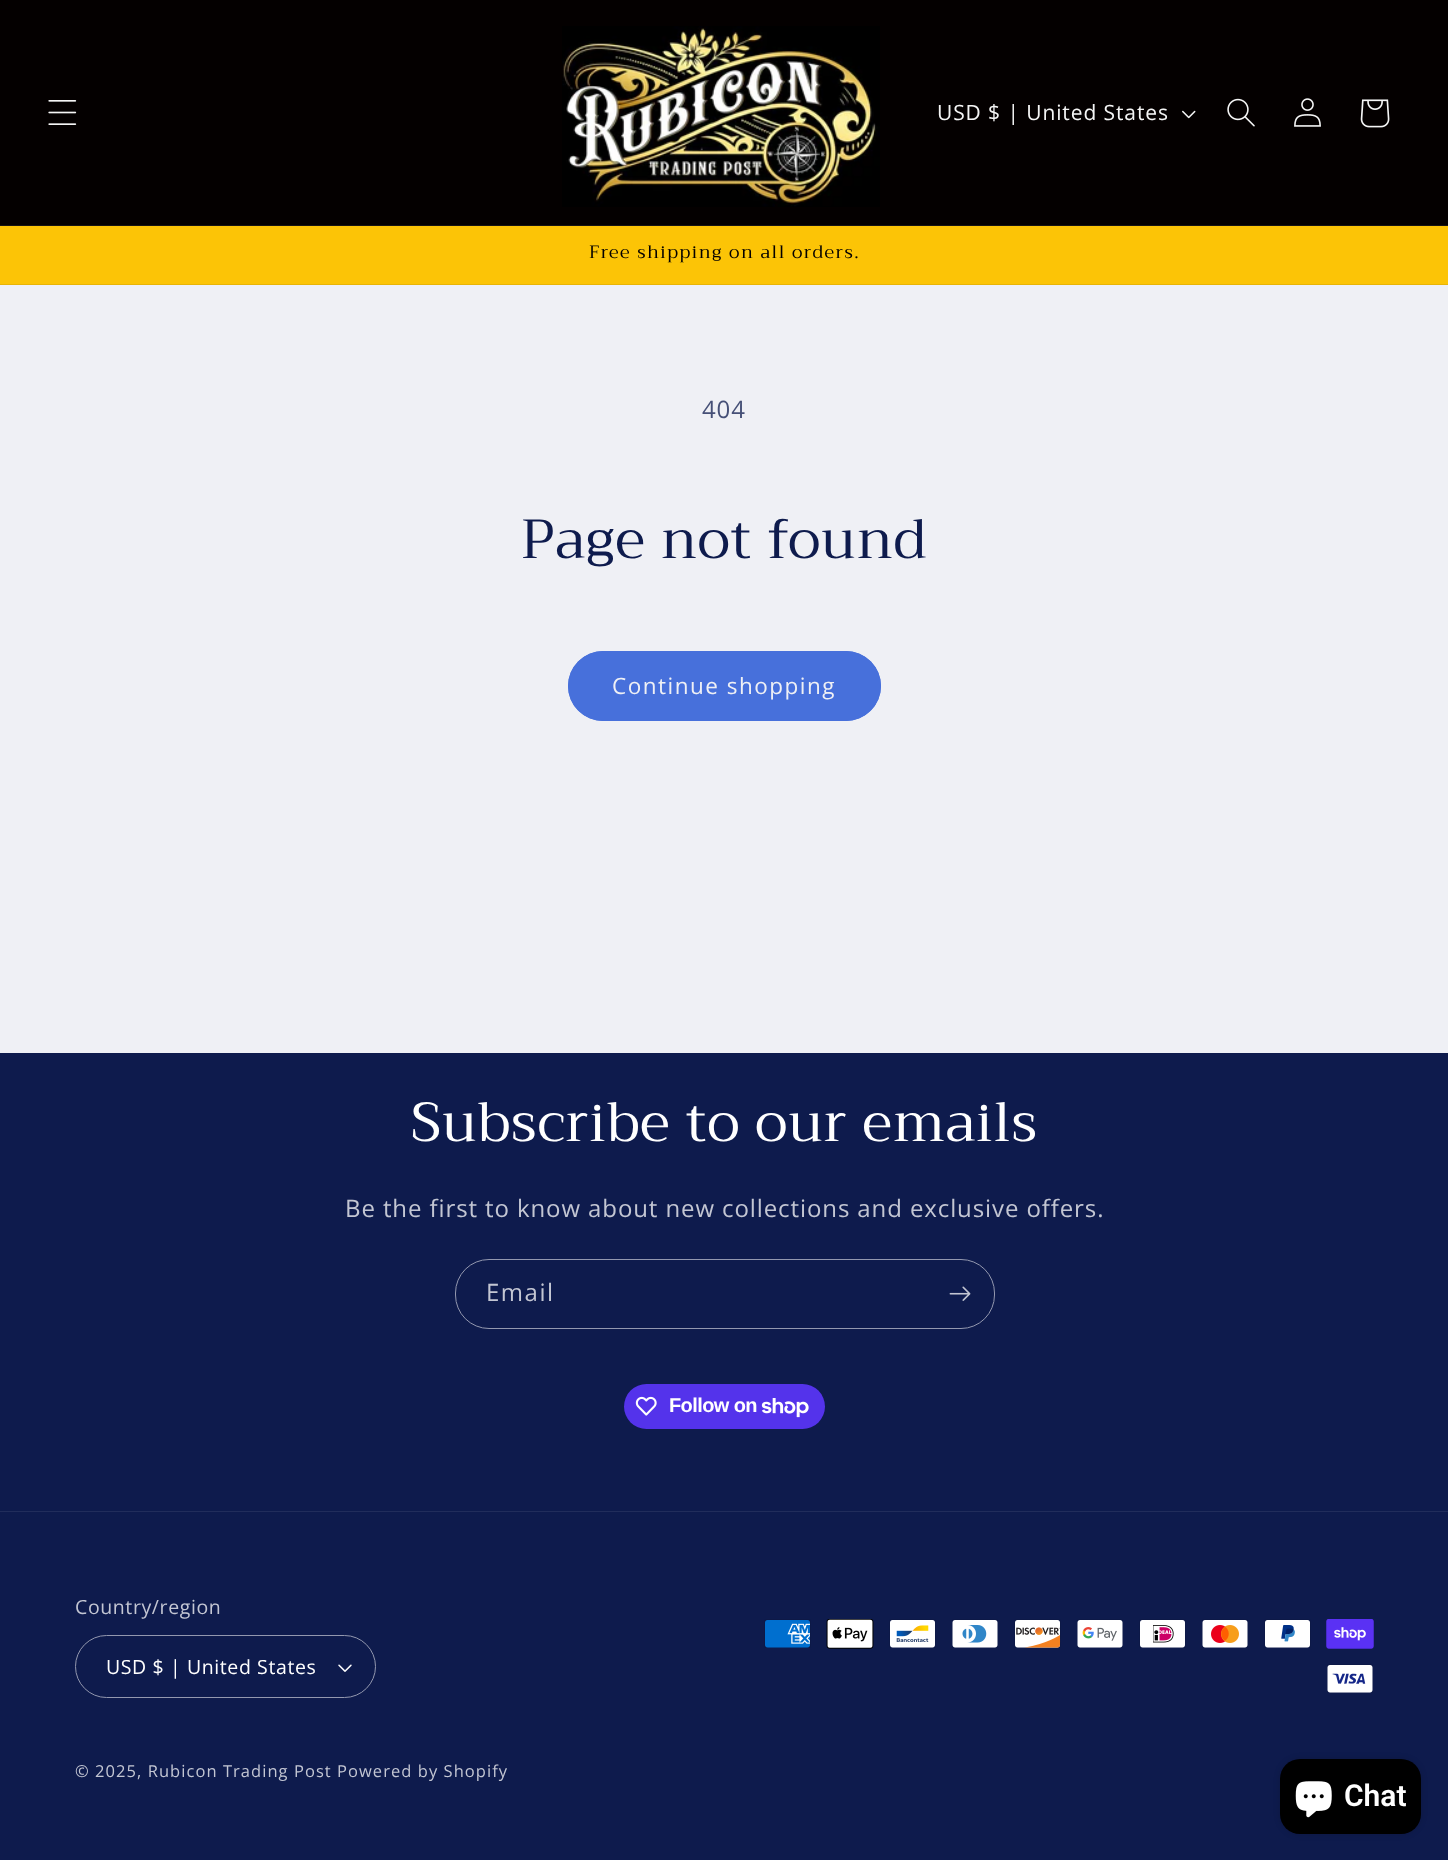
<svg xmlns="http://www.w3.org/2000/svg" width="1448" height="1860">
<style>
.a{font:21px Open Sans;letter-spacing:0.9px;fill:#f5f5f5}
.b{font:17.9px Trirong;letter-spacing:1.5px;fill:#040000}
.c{font:24px Open Sans;letter-spacing:0.9px;fill:#465077}
.d{font:55px Trirong;letter-spacing:0.8px;fill:#0e1b4d}
.e{font:22.5px Open Sans;letter-spacing:1.5px;fill:#eff0f5}
.f{font:55px Trirong;letter-spacing:0.8px;fill:#fff}
.g{font:24px Open Sans;letter-spacing:0.9px;fill:#c3c6d3}
.h{font:24px Open Sans;letter-spacing:1.5px;fill:#c3c6d3}
.i{font:bold 20px Liberation Sans;letter-spacing:-0.6px;fill:#fff}
.j{font:19.5px Open Sans;letter-spacing:0.6px;fill:#c3c6d3}
.k{font:19.5px Open Sans;letter-spacing:0.6px;fill:#fff}
.l{font:16.5px Open Sans;letter-spacing:1.05px;fill:#c3c6d3}
.m{font:600 30px Roboto;fill:#fff}
</style>
<rect width="100%" height="100%" fill="#eff0f5"/>
<path fill="#040000" d="M0 0h1448v225H0z"/>
<path fill="#171414" d="M0 225h1448v1H0z"/>
<image href="1.png" x="48" y="100" width="29" height="25"/>
<image href="2.png" x="562" y="26" width="318" height="181"/>
<image href="3.png" x="1182" y="110" width="14" height="9"/>
<image href="4.png" x="1227" y="98" width="28" height="29"/>
<image href="5.png" x="1294" y="98" width="27" height="29"/>
<image href="6.png" x="1360" y="99" width="30" height="29"/>
<path fill="#fcc406" d="M0 226h1448v58H0z"/>
<path fill="#e8b406" d="M0 284h1448v1H0z"/>
<rect fill="#4770db" x="568" y="651" width="313" height="70" rx="35"/>
<rect fill="none" stroke="#4770db" x="568.5" y="651.5" width="312" height="69" rx="34.5"/>
<path fill="#0e1b4d" d="M0 1053h1448v807H0z"/>
<rect fill="none" stroke="#9398af" x="455.5" y="1259.5" width="539" height="69" rx="33.5"/>
<image href="7.png" x="949" y="1286" width="22" height="15"/>
<rect fill="#5433eb" x="624" y="1384" width="201" height="45" rx="22.5"/>
<image href="8.png" x="635" y="1396" width="22" height="20"/>
<image href="9.png" x="761" y="1398" width="48" height="20"/>
<path fill="#212d5b" d="M0 1511h1448v1H0z"/>
<image href="10.png" x="338" y="1664" width="14" height="8"/>
<rect fill="none" stroke="#9398af" x="75.5" y="1635.5" width="300" height="62" rx="31"/>
<image href="11.png" x="764" y="1619" width="47" height="29"/>
<image href="12.png" x="826" y="1619" width="48" height="30"/>
<image href="13.png" x="889" y="1619" width="47" height="29"/>
<image href="14.png" x="952" y="1619" width="46" height="29"/>
<image href="15.png" x="1014" y="1619" width="47" height="29"/>
<image href="16.png" x="1077" y="1619" width="46" height="29"/>
<image href="17.png" x="1139" y="1619" width="47" height="29"/>
<image href="18.png" x="1202" y="1619" width="46" height="29"/>
<image href="19.png" x="1264" y="1619" width="47" height="29"/>
<image href="20.png" x="1326" y="1619" width="48" height="30"/>
<image href="21.png" x="1327" y="1664" width="46" height="29"/>
<rect fill="#00000026" filter="blur(3px)" x="1280" y="1759" width="141" height="75" rx="20"/>
<rect fill="#000" x="1280" y="1759" width="141" height="75" rx="20"/>
<image href="22.png" x="1295" y="1781" width="37" height="37"/>
<text class="a" x="937" y="120">USD $ | United States</text>
<text class="b" x="589" y="258">Free shipping on all orders.</text>
<text class="c" x="702" y="418">404</text>
<text class="d" x="521" y="558">Page not found</text>
<text class="e" x="612" y="694">Continue shopping</text>
<text class="f" x="411" y="1141">Subscribe to our emails</text>
<text class="g" x="345" y="1217">Be the first to know about new collections and exclusive offers.</text>
<text class="h" x="486" y="1301">Email</text>
<text class="i" x="669" y="1412">Follow on</text>
<text class="j" x="75" y="1614">Country/region</text>
<text class="k" x="106" y="1674">USD $ | United States</text>
<text class="l" x="75" y="1777">© 2025, Rubicon Trading Post Powered by Shopify</text>
<text class="m" x="1344" y="1806">Chat</text>
</svg>
